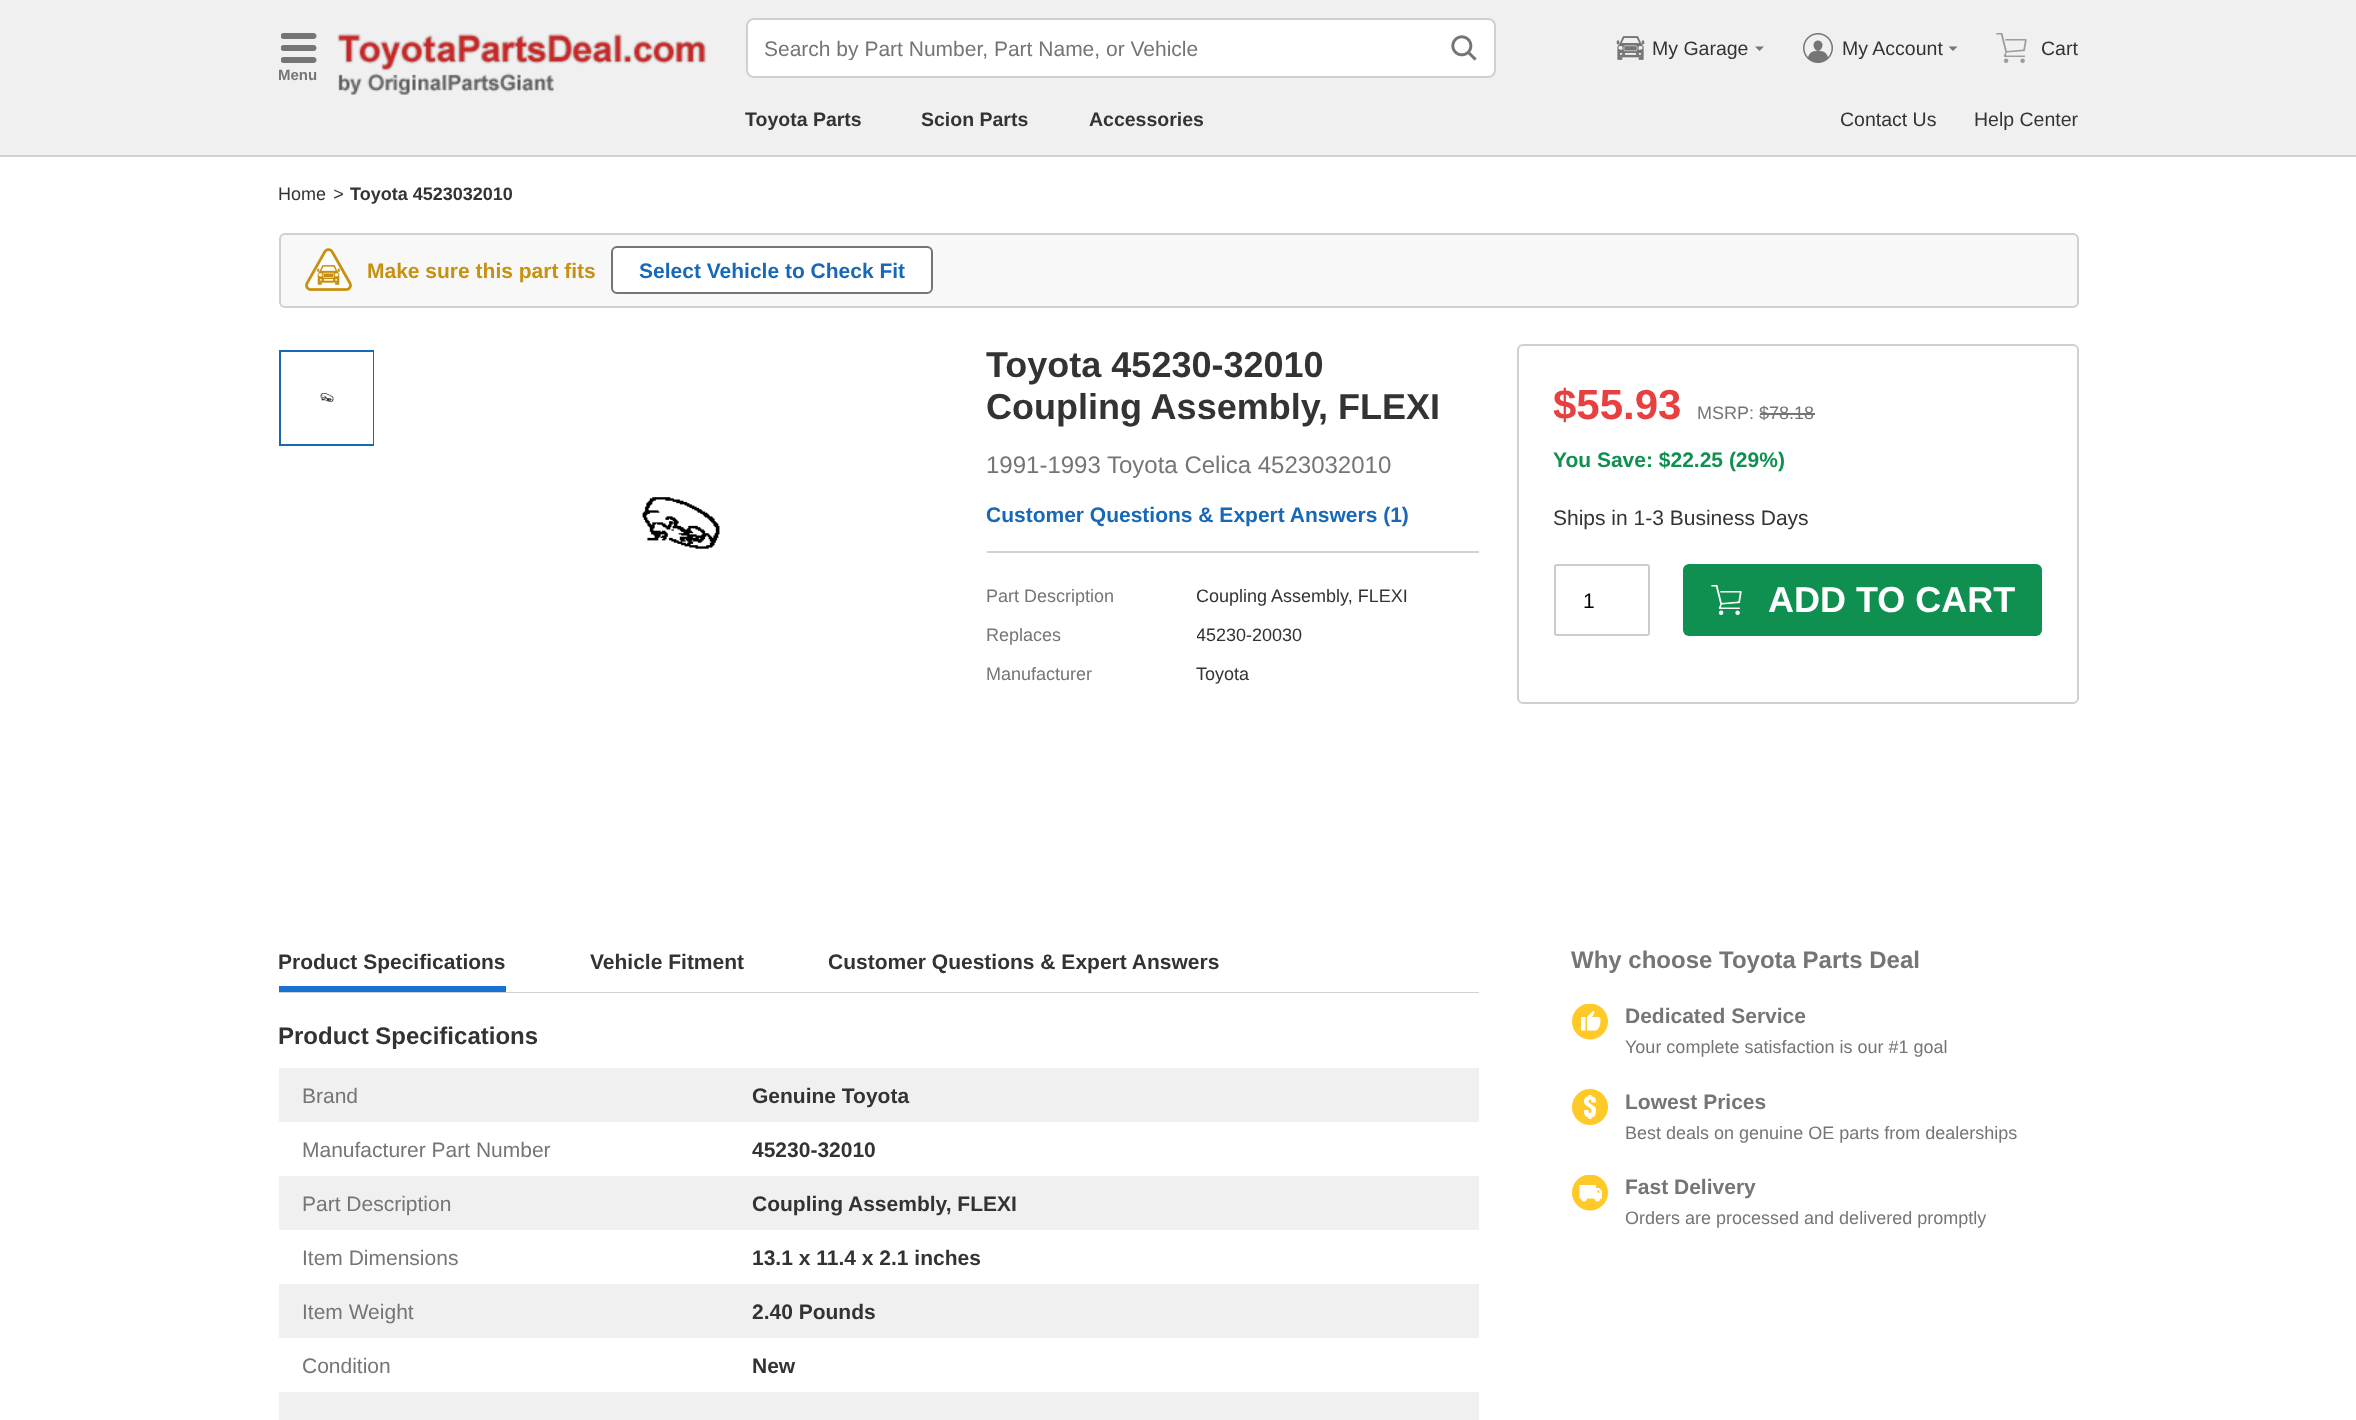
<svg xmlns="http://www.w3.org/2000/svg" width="2356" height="1420">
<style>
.a{font:21px Liberation Sans;fill:#757575}
.b{font:19.5px Liberation Sans;fill:#333}
.c{font:bold 15px Liberation Sans;fill:#757575}
.d{font:bold 19.5px Liberation Sans;fill:#333}
.e{font:18px Liberation Sans;fill:#333}
.f{font:italic 18px Liberation Sans;fill:#333}
.g{font:bold 18px Liberation Sans;fill:#333}
.h{font:bold 21px Liberation Sans;fill:#c89010}
.i{font:bold 21px Liberation Sans;fill:#1868b8}
.j{font:bold 36px Liberation Sans;fill:#333}
.k{font:24px Liberation Sans;fill:#757575}
.l{font:18px Liberation Sans;fill:#757575}
.m{font:bold 42px Liberation Sans;fill:#e84040}
.n{font:bold 21px Liberation Sans;fill:#109050}
.o{font:21px Liberation Sans;fill:#333}
.p{font:21px Liberation Sans;fill:#000}
.q{font:bold 36px Liberation Sans;fill:#fff}
.r{font:bold 21px Liberation Sans;fill:#333}
.s{font:bold 24px Liberation Sans;fill:#333}
.t{font:bold 24px Liberation Sans;fill:#757575}
.u{font:bold 21px Liberation Sans;fill:#757575}
</style>
<defs>
<clipPath id="clip1"><path d="M765 36h611v24H765z"/></clipPath>
<clipPath id="clip2"><path d="M1197 623h105v24H1197z"/></clipPath>
</defs>
<rect width="100%" height="100%" fill="#fff"/>
<path fill="#f0f0f0" d="M0 0h2356v155H0z"/>
<path fill="#d0d0d0" d="M0 155h2356v2H0z"/>
<rect fill="#fff" stroke="#d0d0d0" stroke-width="2" x="747" y="19" width="748" height="58" rx="7"/>
<image href="1.png" x="1451" y="35" width="26" height="26"/>
<image href="2.png" x="1616" y="36" width="29" height="24"/>
<path fill="#757575" d="M1755 46.5h9l-4.5 4.5z"/>
<image href="3.png" x="1803" y="33" width="30" height="30"/>
<path fill="#757575" d="M1948.5 46.5h9l-4.5 4.5z"/>
<image href="4.png" x="1996" y="33" width="31" height="30"/>
<image href="5.png" x="281" y="33" width="36" height="30"/>
<image href="6.png" x="337" y="33" width="370" height="38"/>
<image href="7.png" x="338" y="73" width="216" height="22"/>
<rect fill="#f8f8f8" stroke="#d0d0d0" stroke-width="2" x="280" y="234" width="1798" height="73" rx="5"/>
<image href="8.png" x="305" y="248" width="47" height="43"/>
<rect fill="#fff" stroke="#757575" stroke-width="2" x="612" y="247" width="320" height="46" rx="5"/>
<path fill="#1868b8" fill-rule="evenodd" d="M279 350v96h95v-96zm2 2v92h92v-92z"/>
<image href="9.png" x="320" y="393" width="14" height="9"/>
<image href="10.png" x="642" y="497" width="78" height="52"/>
<path fill="#d0d0d0" d="M987 551h492v2H987z"/>
<rect fill="none" stroke="#d0d0d0" stroke-width="2" x="1518" y="345" width="560" height="358" rx="5"/>
<path fill="#757575" d="M1760 413h55v2H1760z"/>
<rect fill="none" stroke="#ccc" stroke-width="2" x="1555" y="565" width="94" height="70" rx="2"/>
<rect fill="#109050" x="1683" y="564" width="359" height="72" rx="6"/>
<image href="11.png" x="1711" y="585" width="31" height="30"/>
<path fill="#d0d0d0" d="M279 992h1200v1H279z"/>
<path fill="#1972d2" d="M279 986h227v6H279z"/>
<path fill="#f0f0f0" d="M279 1068h1200v54H279z"/>
<path fill="#f0f0f0" d="M279 1176h1200v54H279z"/>
<path fill="#f0f0f0" d="M279 1284h1200v54H279z"/>
<path fill="#f0f0f0" d="M279 1392h1200v28H279z"/>
<image href="12.png" x="1572" y="1004" width="36" height="36"/>
<image href="13.png" x="1572" y="1089" width="36" height="36"/>
<image href="14.png" x="1572" y="1175" width="36" height="36"/>
<g clip-path="url(#clip1)">
<text class="a" x="764" y="56">Search by Part Number, Part Name, or Vehicle</text>
</g>
<text class="b" x="1652" y="55">My Garage</text>
<text class="b" x="1842" y="55">My Account</text>
<text class="b" x="2041" y="55">Cart</text>
<text class="c" x="278" y="80">Menu</text>
<text class="d" x="745" y="126">Toyota Parts</text>
<text class="d" x="921" y="126">Scion Parts</text>
<text class="d" x="1089" y="126">Accessories</text>
<text class="b" x="1840" y="126">Contact Us</text>
<text class="b" x="1974" y="126">Help Center</text>
<text class="e" x="278" y="200">Home</text>
<text class="f" x="333" y="200">&gt;</text>
<text class="g" x="350" y="200">Toyota 4523032010</text>
<text class="h" x="367" y="278">Make sure this part fits</text>
<text class="i" x="639" y="278">Select Vehicle to Check Fit</text>
<text class="j" x="986" y="377">Toyota 45230-32010</text>
<text class="j" x="986" y="419">Coupling Assembly, FLEXI</text>
<text class="k" x="986" y="473">1991-1993 Toyota Celica 4523032010</text>
<text class="i" x="986" y="522">Customer Questions &amp; Expert Answers (1)</text>
<text class="l" x="986" y="602">Part Description</text>
<text class="e" x="1196" y="602">Coupling Assembly, FLEXI</text>
<text class="l" x="986" y="641">Replaces</text>
<g clip-path="url(#clip2)">
<text class="e" x="1196" y="641">45230-20030</text>
</g>
<text class="l" x="986" y="680">Manufacturer</text>
<text class="e" x="1196" y="680">Toyota</text>
<text class="m" x="1553" y="419">$55.93</text>
<text class="l" x="1697" y="419">MSRP: $78.18</text>
<text class="n" x="1553" y="467">You Save: $22.25 (29%)</text>
<text class="o" x="1553" y="525">Ships in 1-3 Business Days</text>
<text class="p" x="1583" y="608">1</text>
<text class="q" x="1768" y="612">ADD TO CART</text>
<text class="r" x="278" y="969">Product Specifications</text>
<text class="r" x="590" y="969">Vehicle Fitment</text>
<text class="r" x="828" y="969">Customer Questions &amp; Expert Answers</text>
<text class="s" x="278" y="1044">Product Specifications</text>
<text class="a" x="302" y="1103">Brand</text>
<text class="r" x="752" y="1103">Genuine Toyota</text>
<text class="a" x="302" y="1157">Manufacturer Part Number</text>
<text class="r" x="752" y="1157">45230-32010</text>
<text class="a" x="302" y="1211">Part Description</text>
<text class="r" x="752" y="1211">Coupling Assembly, FLEXI</text>
<text class="a" x="302" y="1265">Item Dimensions</text>
<text class="r" x="752" y="1265">13.1 x 11.4 x 2.1 inches</text>
<text class="a" x="302" y="1319">Item Weight</text>
<text class="r" x="752" y="1319">2.40 Pounds</text>
<text class="a" x="302" y="1373">Condition</text>
<text class="r" x="752" y="1373">New</text>
<text class="t" x="1571" y="968">Why choose Toyota Parts Deal</text>
<text class="u" x="1625" y="1023">Dedicated Service</text>
<text class="l" x="1625" y="1053">Your complete satisfaction is our #1 goal</text>
<text class="u" x="1625" y="1109">Lowest Prices</text>
<text class="l" x="1625" y="1139">Best deals on genuine OE parts from dealerships</text>
<text class="u" x="1625" y="1194">Fast Delivery</text>
<text class="l" x="1625" y="1224">Orders are processed and delivered promptly</text>
</svg>
